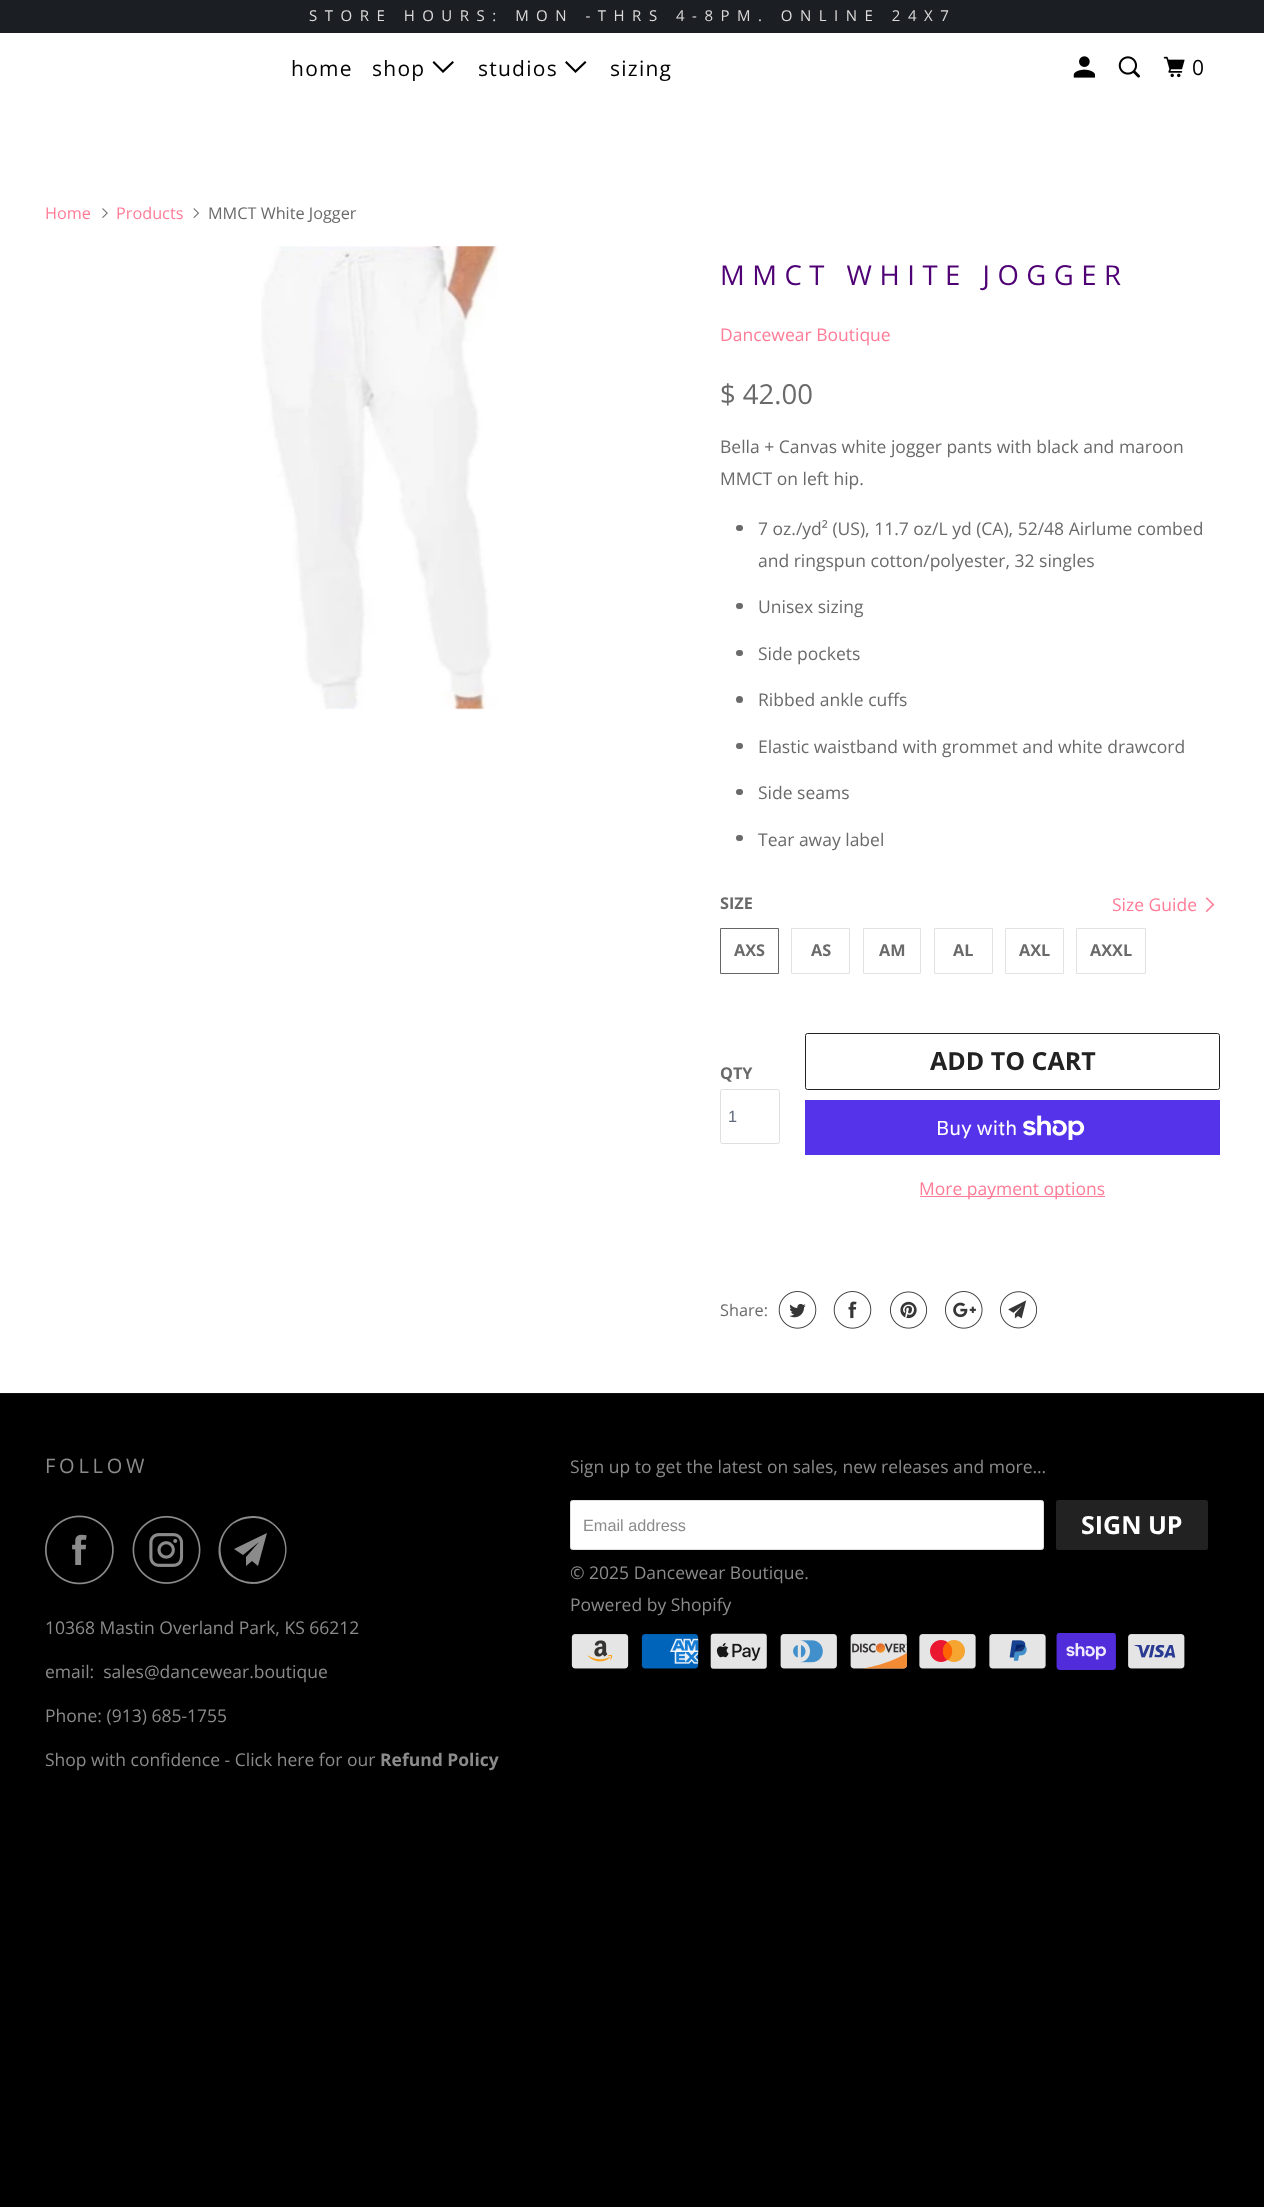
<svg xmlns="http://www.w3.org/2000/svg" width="1264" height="2207">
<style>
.a{font:15px Open Sans;letter-spacing:7.5px;fill:#dcdbdb}
.b{font:21px Open Sans;letter-spacing:1.25px;fill:#000}
.c{font:16.25px Open Sans;fill:#ff7c97}
.d{font:16.25px Open Sans;fill:#6a6a6a}
.e{font:27.5px Open Sans;letter-spacing:7.5px;fill:#4e0074}
.f{font:17.5px Open Sans;fill:#ff7c97}
.g{font:27.5px Open Sans;fill:#6a6a6a}
.h{font:17.5px Open Sans;fill:#6a6a6a}
.i{font:bold 16.25px Open Sans;fill:#6a6a6a}
.j{font:16.25px Liberation Sans;fill:#5f6a7d}
.k{font:bold 25px Open Sans;fill:#222}
.l{font:20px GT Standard;fill:#fff}
.m{font:20px Open Sans;letter-spacing:3.75px;fill:#8b8b8b}
.n{font:17.5px Open Sans;fill:#8b8b8b}
.o{font:bold 17.5px Open Sans;fill:#8b8b8b}
.p{font:16.25px Liberation Sans;fill:#8b8b8b}
.q{font:bold 25px Open Sans;fill:#fff}
</style>
<rect width="100%" height="100%" fill="#000"/>
<path fill="#fff" d="M0 33h1264v1360H0z"/>
<path fill="#1b1f23" d="M0 0h1264v33H0z"/>
<path fill="#000" d="M438 68l-5.5-5.5l1.5-1.5l9 9l9.5-9l1.5 1.5l-11 10.5z"/>
<path fill="#000" d="M570.5 68l-5.5-5.5l1.5-1.5l9 9l9.5-9l1.5 1.5l-11 10.5z"/>
<image href="1.png" x="1073" y="56" width="22" height="22"/>
<image href="2.png" x="1118" y="56" width="22" height="22"/>
<image href="3.png" x="1163" y="56" width="22" height="22"/>
<image href="4.png" x="102" y="208" width="6" height="10"/>
<image href="5.png" x="193" y="208" width="7" height="10"/>
<image href="6.png" x="261" y="246" width="237" height="464"/>
<rect fill="#6a6a6a" x="736" y="525" width="7" height="6" rx="3"/>
<rect fill="#6a6a6a" x="736" y="603" width="7" height="6" rx="3"/>
<rect fill="#6a6a6a" x="736" y="650" width="7" height="6" rx="3"/>
<circle fill="#6a6a6a" cx="739.5" cy="699.5" r="3.5"/>
<rect fill="#6a6a6a" x="736" y="743" width="7" height="6" rx="3"/>
<rect fill="#6a6a6a" x="736" y="789" width="7" height="6" rx="3"/>
<rect fill="#6a6a6a" x="736" y="835" width="7" height="6" rx="3"/>
<path fill="none" stroke="#666" d="M720.5 928.5h58v45H720.5z"/>
<path fill="none" stroke="#e2e2e2" d="M791.5 928.5h58v45H791.5z"/>
<path fill="none" stroke="#e2e2e2" d="M863.5 928.5h57v45H863.5z"/>
<path fill="none" stroke="#e2e2e2" d="M934.5 928.5h58v45H934.5z"/>
<path fill="none" stroke="#e2e2e2" d="M1005.5 928.5h58v45H1005.5z"/>
<path fill="none" stroke="#e2e2e2" d="M1076.5 928.5h69v45H1076.5z"/>
<image href="7.png" x="1205" y="897" width="10" height="16"/>
<rect fill="none" stroke="#dfdfdf" x="720.5" y="1089.5" width="59" height="54" rx="2"/>
<rect fill="none" stroke="#222" x="805.5" y="1033.5" width="414" height="56" rx="2"/>
<path fill="#5433eb" d="M805 1100h415v55H805z"/>
<image href="8.png" x="1023" y="1115" width="62" height="25"/>
<path fill="#ff7c97" d="M920 1196h185v1H920z"/>
<image href="9.png" x="778" y="1291" width="39" height="38"/>
<image href="10.png" x="833" y="1291" width="39" height="38"/>
<image href="11.png" x="890" y="1291" width="38" height="38"/>
<image href="12.png" x="945" y="1291" width="38" height="38"/>
<image href="13.png" x="1000" y="1291" width="38" height="38"/>
<path fill="#111" d="M0 1393h1264v1H0z"/>
<image href="14.png" x="45" y="1515" width="69" height="70"/>
<image href="15.png" x="132" y="1515" width="69" height="69"/>
<path fill="#8b8b8b" d="M258 1566l-6-5l-6 5v-9l13-15l-16 13l-9-6l33-16zm-5-48c-7 0-14 2-20 6c-24 19-11 58 20 58c31 0 44-39 19-58c-5-4-12-6-19-6zm0 66c-8 0-15-3-21-7c-26-19-12-61 21-61c7 0 14 2 20 7c26 19 12 61-20 61z"/>
<rect fill="#fff" stroke="#dfdfdf" x="570.5" y="1500.5" width="473" height="49" rx="2"/>
<rect fill="#222" x="1056" y="1500" width="152" height="50" rx="2.5"/>
<image href="16.png" x="571" y="1634" width="58" height="35"/>
<image href="17.png" x="641" y="1634" width="58" height="35"/>
<image href="18.png" x="710" y="1633" width="57" height="36"/>
<image href="19.png" x="780" y="1634" width="57" height="35"/>
<image href="20.png" x="850" y="1634" width="57" height="35"/>
<image href="21.png" x="919" y="1634" width="57" height="35"/>
<image href="22.png" x="989" y="1634" width="57" height="35"/>
<image href="23.png" x="1056" y="1633" width="60" height="37"/>
<image href="24.png" x="1128" y="1634" width="57" height="35"/>
<text class="a" x="309" y="21">STORE HOURS: MON -THRS 4-8PM. ONLINE 24X7</text>
<text class="b" x="291" y="76">home</text>
<text class="b" x="372" y="76">shop</text>
<text class="b" x="478" y="76">studios</text>
<text class="b" x="610" y="76">sizing</text>
<text class="b" x="1192" y="75">0</text>
<text class="c" x="45" y="219">Home</text>
<text class="c" x="116" y="219">Products</text>
<text class="d" x="208" y="219">MMCT White Jogger</text>
<text class="e" x="720" y="285">MMCT WHITE JOGGER</text>
<text class="f" x="720" y="341">Dancewear Boutique</text>
<text class="g" x="720" y="404">$ 42.00</text>
<text class="h" x="720" y="453">Bella + Canvas white jogger pants with black and maroon</text>
<text class="h" x="720" y="485">MMCT on left hip.</text>
<text class="h" x="758" y="535">7 oz./yd² (US), 11.7 oz/L yd (CA), 52/48 Airlume combed</text>
<text class="h" x="758" y="567">and ringspun cotton/polyester, 32 singles</text>
<text class="h" x="758" y="613">Unisex sizing</text>
<text class="h" x="758" y="660">Side pockets</text>
<text class="h" x="758" y="706">Ribbed ankle cuffs</text>
<text class="h" x="758" y="753">Elastic waistband with grommet and white drawcord</text>
<text class="h" x="758" y="799">Side seams</text>
<text class="h" x="758" y="846">Tear away label</text>
<text class="i" x="720" y="909">SIZE</text>
<text class="i" x="734" y="956">AXS</text>
<text class="i" x="811" y="956">AS</text>
<text class="i" x="879" y="956">AM</text>
<text class="i" x="953" y="956">AL</text>
<text class="i" x="1019" y="956">AXL</text>
<text class="i" x="1090" y="956">AXXL</text>
<text class="f" x="1112" y="911">Size Guide</text>
<text class="i" x="720" y="1079">QTY</text>
<text class="j" x="728" y="1122">1</text>
<text class="k" x="930" y="1070">ADD TO CART</text>
<text class="l" x="936" y="1135">Buy with</text>
<text class="f" x="919" y="1195">More payment options</text>
<text class="d" x="720" y="1316">Share:</text>
<text class="m" x="45" y="1473">FOLLOW</text>
<text class="n" x="45" y="1634">10368 Mastin Overland Park, KS 66212</text>
<text class="n" xml:space="preserve" x="45" y="1678">email:  sales@dancewear.boutique</text>
<text class="n" x="45" y="1722">Phone: (913) 685-1755</text>
<text class="n" x="45" y="1766">Shop with confidence - Click here for our</text>
<text class="o" x="380" y="1766">Refund Policy</text>
<text class="n" x="570" y="1473">Sign up to get the latest on sales, new releases and more…</text>
<text class="p" x="583" y="1531">Email address</text>
<text class="q" x="1081" y="1534">SIGN UP</text>
<text class="n" x="570" y="1579">© 2025 Dancewear Boutique.</text>
<text class="n" x="570" y="1611">Powered by Shopify</text>
</svg>
